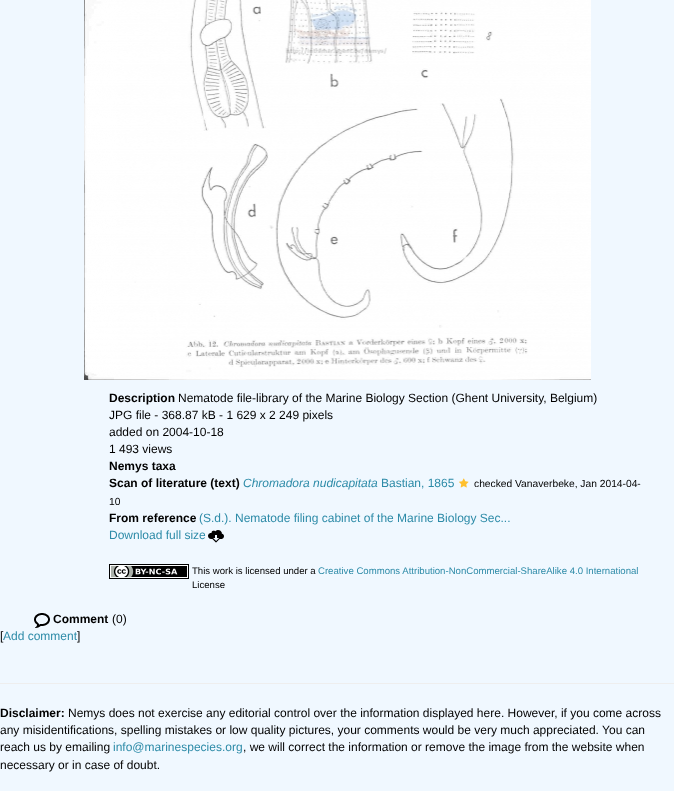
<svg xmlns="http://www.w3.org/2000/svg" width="674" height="791">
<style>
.a{font:bold 12px Liberation Sans;fill:#000}
.b{font:12px Liberation Sans;fill:#000}
.c{font:italic 12px Liberation Sans;fill:#2d8ba8}
.d{font:12px Liberation Sans;fill:#2d8ba8}
.e{font:10.25px Liberation Sans;fill:#000}
.f{font:9.6px Liberation Sans;fill:#000}
.g{font:9.6px Liberation Sans;fill:#2d8ba8}
</style>
<rect width="100%" height="100%" fill="#f0f8ff"/>
<image href="1.png" x="84" y="0" width="507" height="380"/>
<image href="2.png" x="459" y="478" width="10" height="10"/>
<image href="3.png" x="208" y="530" width="16" height="13"/>
<image href="4.png" x="109" y="564" width="80" height="15"/>
<image href="5.png" x="34" y="613" width="16" height="15"/>
<path fill="#eee" d="M0 683h674v1H0z"/>
<text class="a" x="109" y="402">Description</text>
<text class="b" x="178" y="402">Nematode file-library of the Marine Biology Section (Ghent University, Belgium)</text>
<text class="b" x="109" y="419">JPG file - 368.87 kB - 1 629 x 2 249 pixels</text>
<text class="b" x="109" y="436">added on 2004-10-18</text>
<text class="b" x="109" y="453">1 493 views</text>
<text class="a" x="109" y="470">Nemys taxa</text>
<text class="a" x="109" y="487">Scan of literature (text)</text>
<text class="c" x="243" y="487">Chromadora nudicapitata</text>
<text class="d" x="381" y="487">Bastian, 1865</text>
<text class="e" x="474" y="487">checked Vanaverbeke, Jan 2014-04-</text>
<text class="e" x="109" y="505">10</text>
<text class="a" x="109" y="522">From reference</text>
<text class="d" x="199" y="522">(S.d.). Nematode filing cabinet of the Marine Biology Sec...</text>
<text class="d" x="109" y="539">Download full size</text>
<text class="f" x="192" y="574">This work is licensed under a</text>
<text class="g" x="318" y="574">Creative Commons Attribution-NonCommercial-ShareAlike 4.0 International</text>
<text class="f" x="192" y="588">License</text>
<text class="a" x="53" y="623">Comment</text>
<text class="b" x="112" y="623">(0)</text>
<text class="b" x="0" y="640">[</text>
<text class="d" x="3" y="640">Add comment</text>
<text class="b" x="77" y="640">]</text>
<text class="a" x="0" y="717">Disclaimer:</text>
<text class="b" x="68" y="717">Nemys does not exercise any editorial control over the information displayed here. However, if you come across</text>
<text class="b" x="0" y="734">any misidentifications, spelling mistakes or low quality pictures, your comments would be very much appreciated. You can</text>
<text class="b" x="0" y="751">reach us by emailing</text>
<text class="d" x="113" y="751">info@marinespecies.org</text>
<text class="b" x="243" y="751">, we will correct the information or remove the image from the website when</text>
<text class="b" x="0" y="769">necessary or in case of doubt.</text>
</svg>
